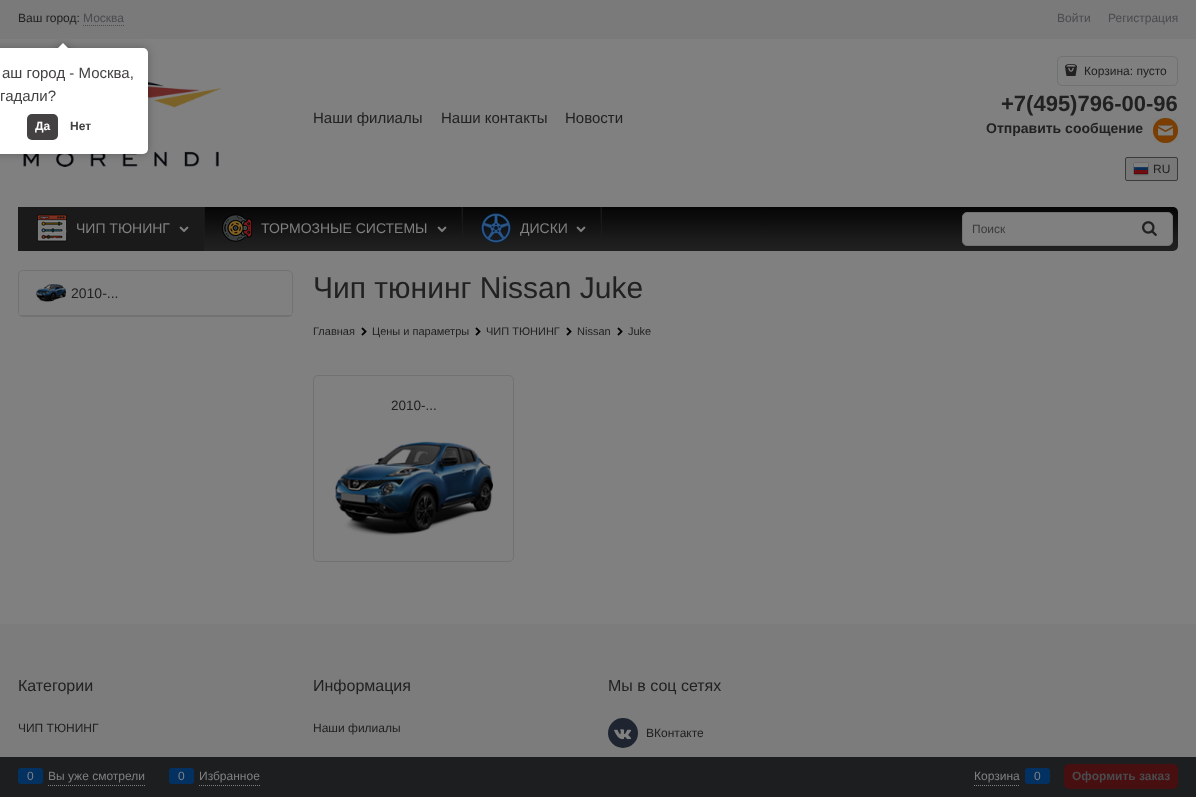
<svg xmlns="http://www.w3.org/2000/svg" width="1196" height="797">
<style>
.a{font:12px Liberation Sans;fill:#222121}
.b{font:12px Liberation Sans;fill:#4a4b4e}
.c{font:15px Liberation Sans;fill:#222121}
.d{font:bold 22px Liberation Sans;fill:#222121}
.e{font:bold 14px Liberation Sans;fill:#222121}
.f{font:14px Liberation Sans;fill:#808080}
.g{font:12px Liberation Sans;fill:#3b3b3b}
.h{font:14px Liberation Sans;fill:#222121}
.i{font:30px Liberation Sans;fill:#222121}
.j{font:11px Liberation Sans;fill:#222121}
.k{font:13.5px Liberation Sans;fill:#222121}
.l{font:16px Liberation Sans;fill:#222121}
.m{font:12px Liberation Sans;fill:#808080}
.n{font:bold 12px Liberation Sans;fill:#4a4b4e}
.o{font:15px Liberation Sans;fill:#434142}
.p{font:bold 12px Liberation Sans;fill:#fff}
.q{font:bold 12px Liberation Sans;fill:#434142}
</style>
<defs>
<linearGradient id="g1" gradientUnits="userSpaceOnUse" x1="598" y1="207" x2="598" y2="251"><stop offset="0" stop-color="#040404"/><stop offset="0.08" stop-color="#080808"/><stop offset="0.31" stop-color="#0e0e0e"/><stop offset="0.72" stop-color="#1c1b1b"/><stop offset="1" stop-color="#222121"/></linearGradient>
<linearGradient id="g2" gradientUnits="userSpaceOnUse" x1="205" y1="207" x2="205" y2="251"><stop offset="0" stop-color="#808080" stop-opacity="0.14"/><stop offset="0.72" stop-color="#808080" stop-opacity="0.02"/><stop offset="1" stop-color="#808080" stop-opacity="0"/></linearGradient>
<linearGradient id="g3" gradientUnits="userSpaceOnUse" x1="204" y1="207" x2="204" y2="251"><stop offset="0" stop-color="#1c1b1c"/><stop offset="0.17" stop-color="#1c1b1b"/><stop offset="0.61" stop-color="#1b1b1b"/><stop offset="0.96" stop-color="#1b1a1b"/><stop offset="0.98" stop-color="#1c1b1c"/><stop offset="1" stop-color="#1b1a1b"/></linearGradient>
<linearGradient id="g4" gradientUnits="userSpaceOnUse" x1="463" y1="207" x2="463" y2="251"><stop offset="0" stop-color="#808080" stop-opacity="0.14"/><stop offset="0.72" stop-color="#808080" stop-opacity="0.02"/><stop offset="1" stop-color="#808080" stop-opacity="0"/></linearGradient>
<linearGradient id="g5" gradientUnits="userSpaceOnUse" x1="462" y1="207" x2="462" y2="251"><stop offset="0" stop-color="#1d1d1d" stop-opacity="0.39"/><stop offset="0.17" stop-color="#1d1d1d" stop-opacity="0.33"/><stop offset="0.61" stop-color="#1d1d1d" stop-opacity="0.12"/><stop offset="0.96" stop-color="#1d1d1d" stop-opacity="0.01"/><stop offset="0.98" stop-color="#808080" stop-opacity="0.01"/><stop offset="1" stop-color="#808080" stop-opacity="0"/></linearGradient>
<linearGradient id="g6" gradientUnits="userSpaceOnUse" x1="602" y1="207" x2="602" y2="251"><stop offset="0" stop-color="#808080" stop-opacity="0.14"/><stop offset="0.72" stop-color="#808080" stop-opacity="0.02"/><stop offset="1" stop-color="#808080" stop-opacity="0"/></linearGradient>
<linearGradient id="g7" gradientUnits="userSpaceOnUse" x1="601" y1="207" x2="601" y2="251"><stop offset="0" stop-color="#1d1d1d" stop-opacity="0.39"/><stop offset="0.17" stop-color="#1d1d1d" stop-opacity="0.33"/><stop offset="0.61" stop-color="#1d1d1d" stop-opacity="0.12"/><stop offset="0.96" stop-color="#1d1d1d" stop-opacity="0.01"/><stop offset="0.98" stop-color="#808080" stop-opacity="0.01"/><stop offset="1" stop-color="#808080" stop-opacity="0"/></linearGradient>
<clipPath id="clip1"><path d="M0 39h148v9H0z"/></clipPath>
<clipPath id="clip2"><path d="M0 39h148v9H0z"/></clipPath>
</defs>
<rect width="100%" height="100%" fill="#808080"/>
<path fill="#7a7a7a" d="M0 0h1196v39H0z"/>
<path fill="none" stroke="#4a4b4e" stroke-dasharray="1 1" d="M83 25.5h41"/>
<image href="1.png" x="23" y="81" width="198" height="86"/>
<rect fill="none" stroke="#717272" x="1057.5" y="56.5" width="120" height="29" rx="4.5"/>
<image href="2.png" x="1065" y="64" width="12" height="12"/>
<image href="3.png" x="1153" y="118" width="25" height="25"/>
<rect fill="#787878" stroke="#3b3b3b" x="1125.5" y="157.5" width="52" height="23" rx="1.5"/>
<image href="4.png" x="1133" y="162" width="16" height="14"/>
<rect fill="url(#g1)" x="18" y="207" width="1160" height="44" rx="5"/>
<path fill="#1b1a1b" d="M18 207h185v44H18z"/>
<image href="5.png" x="37" y="214" width="30" height="28"/>
<image href="6.png" x="179" y="226" width="10" height="7"/>
<path fill="url(#g2)" d="M204 207h1v31H204z"/>
<path fill="url(#g3)" d="M203 207h1v44H203z"/>
<image href="7.png" x="222" y="214" width="30" height="28"/>
<image href="8.png" x="437" y="226" width="10" height="7"/>
<path fill="url(#g4)" d="M462 207h1v31H462z"/>
<path fill="url(#g5)" d="M461 207h1v17H461z"/>
<image href="9.png" x="481" y="213" width="30" height="30"/>
<image href="8.png" x="576" y="226" width="10" height="7"/>
<path fill="url(#g6)" d="M601 207h1v31H601z"/>
<path fill="url(#g7)" d="M600 207h1v17H600z"/>
<rect fill="#808080" stroke="#717272" x="962.5" y="212.5" width="210" height="33" rx="4.5"/>
<image href="10.png" x="1142" y="221" width="15" height="15"/>
<rect fill="none" stroke="#717272" x="18.5" y="270.5" width="274" height="46" rx="4.5"/>
<path fill="#717272" d="M19 315h273v1H19z"/>
<path fill="#808080" d="M24 271h263c3 0 5 2 5 5v39h-273v-39c0-3 2-5 5-5z"/>
<image href="11.png" x="36" y="284" width="30" height="18"/>
<image href="12.png" x="361" y="327" width="6" height="9"/>
<image href="12.png" x="475" y="327" width="6" height="9"/>
<image href="12.png" x="566" y="327" width="6" height="9"/>
<image href="12.png" x="617" y="327" width="6" height="9"/>
<rect fill="none" stroke="#717272" x="313.5" y="375.5" width="200" height="186" rx="4.5"/>
<image href="13.png" x="335" y="441" width="158" height="95"/>
<path fill="#7c7c7c" d="M0 624h1196v133H0z"/>
<circle fill="#1e2530" cx="623" cy="733" r="15"/>
<image href="14.png" x="614" y="729" width="18" height="11"/>
<path fill="#1c1e20" d="M0 757h1196v40H0z"/>
<path fill="none" stroke="#808080" stroke-dasharray="1 1" d="M48 785.5h97"/>
<rect fill="#033161" x="18" y="768" width="25" height="16" rx="3"/>
<path fill="none" stroke="#808080" stroke-dasharray="1 1" d="M199 785.5h61"/>
<rect fill="#033161" x="169" y="768" width="25" height="16" rx="3"/>
<path fill="none" stroke="#808080" stroke-dasharray="1 1" d="M974 785.5h46"/>
<rect fill="#033161" x="1025" y="768" width="25" height="16" rx="3"/>
<rect fill="#470f10" x="1064" y="764" width="114" height="25" rx="5"/>
<rect fill="#00000040" filter="blur(4.5px)" x="-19" y="48" width="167" height="106" rx="5"/>
<rect fill="#fff" x="-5" y="48" width="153" height="106" rx="5"/>
<g clip-path="url(#clip1)">
<path fill="#00000040" filter="blur(4.5px)" d="M58 45h10v10H58z"/>
</g>
<g clip-path="url(#clip2)">
<path fill="#fff" d="M63 43l7 7l-7 7l-7-7z"/>
</g>
<rect fill="#434142" x="27" y="114" width="31" height="26" rx="5"/>
<text class="a" x="18" y="22">Ваш город:</text>
<text class="b" x="83" y="22">Москва</text>
<text class="b" x="1057" y="22">Войти</text>
<text class="b" x="1108" y="22">Регистрация</text>
<text class="c" x="313" y="123">Наши филиалы</text>
<text class="c" x="441" y="123">Наши контакты</text>
<text class="c" x="565" y="123">Новости</text>
<text class="a" x="1084" y="75">Корзина: пусто</text>
<text class="d" x="1001" y="111">+7(495)796-00-96</text>
<text class="e" x="986" y="133">Отправить сообщение</text>
<text class="a" x="1153" y="173">RU</text>
<text class="f" x="76" y="233">ЧИП ТЮНИНГ</text>
<text class="f" x="261" y="233">ТОРМОЗНЫЕ СИСТЕМЫ</text>
<text class="f" x="520" y="233">ДИСКИ</text>
<text class="g" x="972" y="233">Поиск</text>
<text class="h" x="71" y="298">2010-...</text>
<text class="i" x="313" y="298">Чип тюнинг Nissan Juke</text>
<text class="j" x="313" y="335">Главная</text>
<text class="j" x="372" y="335">Цены и параметры</text>
<text class="j" x="486" y="335">ЧИП ТЮНИНГ</text>
<text class="j" x="577" y="335">Nissan</text>
<text class="j" x="628" y="335">Juke</text>
<text class="k" x="391" y="410">2010-...</text>
<text class="l" x="18" y="691">Категории</text>
<text class="a" x="18" y="732">ЧИП ТЮНИНГ</text>
<text class="l" x="313" y="691">Информация</text>
<text class="a" x="313" y="732">Наши филиалы</text>
<text class="l" x="608" y="691">Мы в соц сетях</text>
<text class="a" x="646" y="737">ВКонтакте</text>
<text class="m" x="27" y="780">0</text>
<text class="m" x="48" y="780">Вы уже смотрели</text>
<text class="m" x="178" y="780">0</text>
<text class="m" x="199" y="780">Избранное</text>
<text class="m" x="974" y="780">Корзина</text>
<text class="m" x="1034" y="780">0</text>
<text class="n" x="1072" y="780">Оформить заказ</text>
<text class="o" x="2" y="78">аш город - Москва,</text>
<text class="o" x="0" y="101">гадали?</text>
<text class="p" x="35" y="130">Да</text>
<text class="q" x="70" y="130">Нет</text>
</svg>
